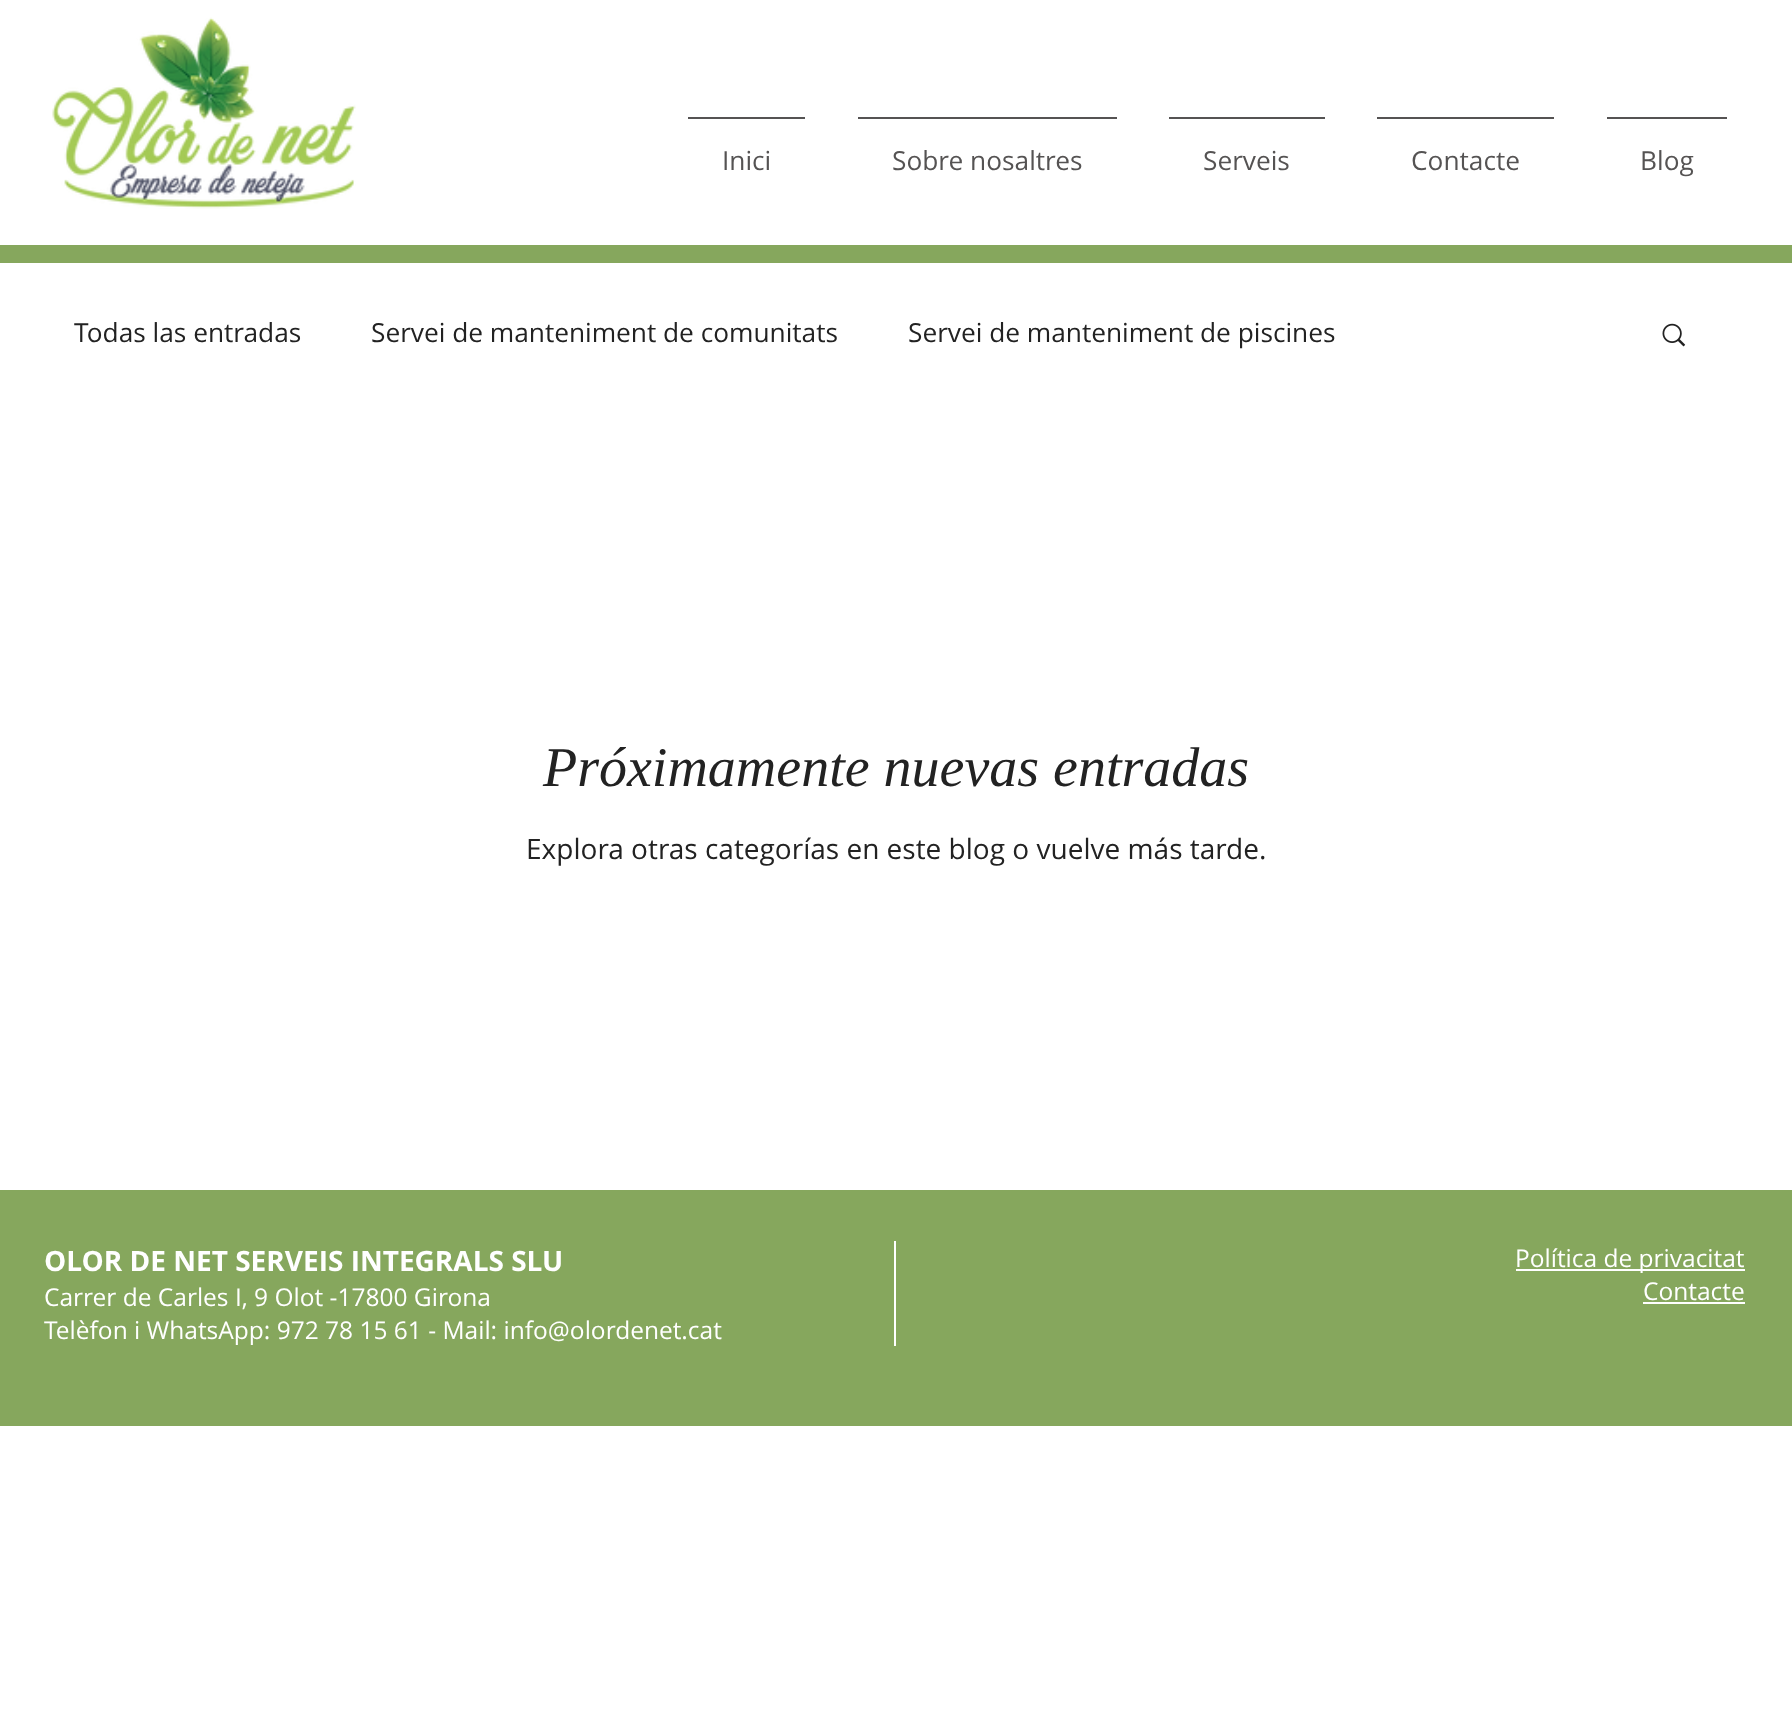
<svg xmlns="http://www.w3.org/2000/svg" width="1792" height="1725">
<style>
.a{font:26.25px Open Sans;fill:#555353}
.b{font:26.25px Open Sans;fill:#222}
.c{font:italic 56px Liberation Serif;fill:#222}
.d{font:28px Open Sans;fill:#222}
.e{font:bold 28px Open Sans;fill:#fff}
.f{font:24.5px Open Sans;fill:#fff}
</style>
<rect width="100%" height="100%" fill="#fff"/>
<image href="1.png" x="52" y="17" width="304" height="192"/>
<path fill="#555353" d="M688 117h117v2H688z"/>
<path fill="#555353" d="M858 117h259v2H858z"/>
<path fill="#555353" d="M1169 117h156v2H1169z"/>
<path fill="#555353" d="M1377 117h177v2H1377z"/>
<path fill="#555353" d="M1607 117h120v2H1607z"/>
<path fill="#86a75d" d="M0 245h1792v18H0z"/>
<image href="2.png" x="1662" y="323" width="24" height="24"/>
<path fill="#86a75d" d="M0 1190h1792v236H0z"/>
<path fill="#fff" d="M894 1241h2v105H894z"/>
<path fill="#fff" d="M1516 1269h229v2H1516z"/>
<path fill="#fff" d="M1643 1302h102v2H1643z"/>
<text class="a" x="722" y="170">Inici</text>
<text class="a" x="892" y="170">Sobre nosaltres</text>
<text class="a" x="1203" y="170">Serveis</text>
<text class="a" x="1411" y="170">Contacte</text>
<text class="a" x="1640" y="170">Blog</text>
<text class="b" x="74" y="342">Todas las entradas</text>
<text class="b" x="371" y="342">Servei de manteniment de comunitats</text>
<text class="b" x="908" y="342">Servei de manteniment de piscines</text>
<text class="c" x="543" y="786">Próximamente nuevas entradas</text>
<text class="d" x="526" y="859">Explora otras categorías en este blog o vuelve más tarde.</text>
<text class="e" x="44" y="1271">OLOR DE NET SERVEIS INTEGRALS SLU</text>
<text class="f" x="44" y="1306">Carrer de Carles I, 9 Olot -17800 Girona</text>
<text class="f" x="44" y="1339">Telèfon i WhatsApp: 972 78 15 61 - Mail: info@olordenet.cat</text>
<text class="f" x="1515" y="1267">Política de privacitat</text>
<text class="f" x="1643" y="1300">Contacte</text>
</svg>
